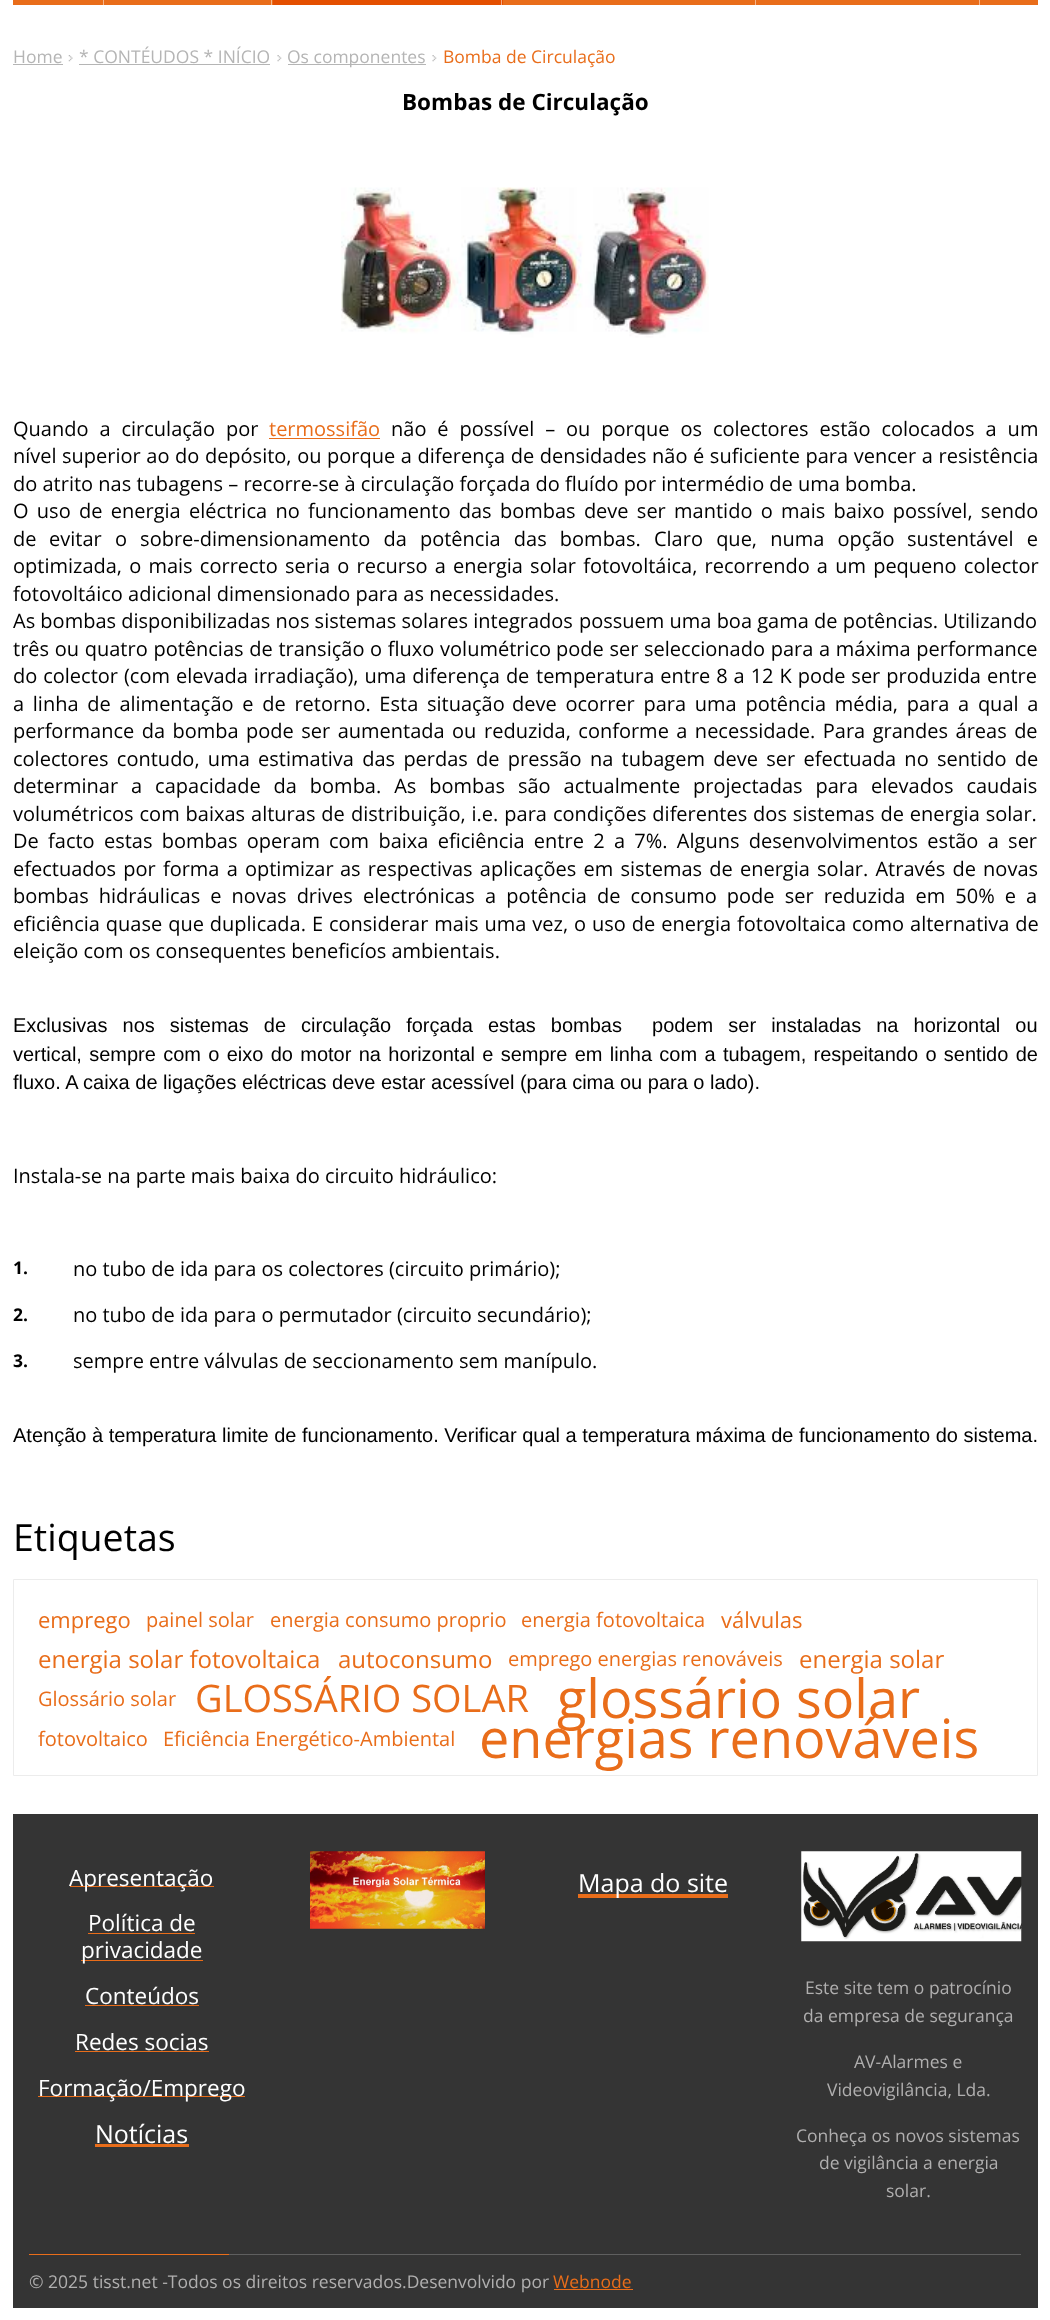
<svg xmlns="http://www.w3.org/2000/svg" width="1050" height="2320">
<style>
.a{font:17.5px Open Sans;fill:#b5b5b5}
.b{font:17.5px Open Sans;fill:#e96d1a}
.c{font:bold 22.5px Open Sans;fill:#000}
.d{font:20px Open Sans;fill:#000}
.e{font:20px Open Sans;fill:#e96d1a}
.f{font:20px Liberation Sans;fill:#000}
.g{font:bold 17.5px Open Sans;fill:#000}
.h{font:37.5px Open Sans;fill:#000}
.i{font:22px Open Sans;fill:#e96d1a}
.j{font:24px Open Sans;fill:#e96d1a}
.k{font:38px Open Sans;fill:#e96d1a}
.l{font:54px Open Sans;fill:#e96d1a}
.m{font:22.5px Open Sans;fill:#fff}
.n{font:25px Open Sans;fill:#fff}
.o{font:17.5px Open Sans;fill:#b0afaf}
</style>
<rect width="100%" height="100%" fill="#fff"/>
<path fill="#e96d1a" d="M13 0h1025v5H13z"/>
<path fill="#f4b68d" d="M103 0h1v5H103z"/>
<path fill="#f4b68d" d="M271 0h1v5H271z"/>
<path fill="#e44f00" d="M273 0h230v5H273z"/>
<path fill="#f2a780" d="M501 0h1v5H501z"/>
<path fill="#f4b68d" d="M755 0h1v5H755z"/>
<path fill="#f4b68d" d="M979 0h1v5H979z"/>
<path fill="#b5b5b5" d="M13 64h50v1H13z"/>
<image href="1.png" x="68" y="55" width="5" height="7"/>
<path fill="#b5b5b5" d="M79 64h191v1H79z"/>
<image href="2.png" x="277" y="55" width="5" height="7"/>
<path fill="#b5b5b5" d="M288 64h138v1H288z"/>
<image href="2.png" x="432" y="55" width="5" height="7"/>
<image href="3.png" x="341" y="187" width="368" height="151"/>
<path fill="#e96d1a" d="M269 438h111v1H269z"/>
<path fill="none" stroke="#ececec" d="M13.5 1579.5h1024v196H13.5z"/>
<path fill="#343434" d="M13 1814h1025v494H13z"/>
<path fill="#e96d1a" d="M70 1886h144v1H70z"/>
<path fill="#e96d1a" d="M88 1933h107v1H88z"/>
<path fill="#e96d1a" d="M81 1960h122v1H81z"/>
<path fill="#e96d1a" d="M85 2005h114v1H85z"/>
<path fill="#e96d1a" d="M75 2051h134v1H75z"/>
<path fill="#e96d1a" d="M38 2096h207v1H38z"/>
<path fill="#e96d1a" d="M95 2144h94v3H95z"/>
<image href="4.png" x="310" y="1851" width="175" height="78"/>
<path fill="#e96d1a" d="M578 1894h150v4H578z"/>
<image href="5.png" x="801" y="1851" width="221" height="91"/>
<path fill="#5f5f5f" d="M229 2254h792v1H229z"/>
<path fill="#e96d1a" d="M29 2254h200v1H29z"/>
<path fill="#e96d1a" d="M554 2289h79v1H554z"/>
<text class="a" x="13" y="63">Home</text>
<text class="a" x="79" y="63">* CONTÉUDOS * INÍCIO</text>
<text class="a" x="287" y="63">Os componentes</text>
<text class="b" x="443" y="63">Bomba de Circulação</text>
<text class="c" x="402" y="110">Bombas de Circulação</text>
<text class="d" x="13" y="436" word-spacing="5.75">Quando a circulação por</text>
<text class="e" x="269" y="436">termossifão</text>
<text class="d" x="391" y="436" word-spacing="5.75">não é possível – ou porque os colectores estão colocados a um</text>
<text class="d" x="13" y="463">nível</text>
<text class="d" x="62" y="463" word-spacing="0.4">superior ao do depósito, ou porque a diferença de densidades não é suficiente para vencer a resistência</text>
<text class="d" x="13" y="491">do atrito nas tubagens – recorre-se à circulação forçada do fluído por intermédio de uma bomba.</text>
<text class="d" x="13" y="518" word-spacing="3.1">O uso de energia eléctrica no funcionamento das bombas deve ser mantido o mais baixo possível, sendo</text>
<text class="d" x="13" y="546">de</text>
<text class="d" x="49" y="546" word-spacing="8">evitar o sobre-dimensionamento da potência das bombas. Claro que, numa opção</text>
<text class="d" x="907" y="546" word-spacing="8">sustentável e</text>
<text class="d" x="13" y="573" word-spacing="2">optimizada, o mais correcto seria o recurso a energia solar fotovoltáica, recorrendo a um pequeno colector</text>
<text class="d" x="13" y="601">fotovoltáico adicional dimensionado para as necessidades.</text>
<text class="d" x="13" y="628">As bombas disponibilizadas nos sistemas solares integrados</text>
<text class="d" x="579" y="628">possuem uma boa gama de potências. Utilizando</text>
<text class="d" x="13" y="656" word-spacing="0.5">três ou quatro potências de transição o fluxo volumétrico</text>
<text class="d" x="556" y="656" word-spacing="0.5">pode ser seleccionado para a máxima performance</text>
<text class="d" x="13" y="683" word-spacing="0.75">do colector (com elevada irradiação), uma diferença de</text>
<text class="d" x="536" y="683" word-spacing="0.75">temperatura entre 8 a 12 K pode ser produzida entre</text>
<text class="d" x="13" y="711" word-spacing="3.5">a linha de alimentação e de retorno. Esta situação</text>
<text class="d" x="512" y="711" word-spacing="3.5">deve ocorrer para uma potência média, para a qual a</text>
<text class="d" x="13" y="738" word-spacing="2.25">performance da bomba pode ser aumentada ou</text>
<text class="d" x="484" y="738" word-spacing="2.25">reduzida, conforme a necessidade. Para grandes áreas de</text>
<text class="d" x="13" y="766" word-spacing="3.1">colectores contudo, uma estimativa das perdas</text>
<text class="d" x="476" y="766" word-spacing="3.1">de pressão na tubagem deve ser efectuada no sentido de</text>
<text class="d" x="13" y="793" word-spacing="7.75">determinar a capacidade da bomba. As bombas são actualmente projectadas para elevados caudais</text>
<text class="d" x="13" y="821" word-spacing="0.75">volumétricos com baixas alturas de</text>
<text class="d" x="351" y="821" word-spacing="0.75">distribuição, i.e. para condições diferentes dos sistemas de energia solar.</text>
<text class="d" x="13" y="848" word-spacing="4.1">De facto estas bombas operam</text>
<text class="d" x="329" y="848" word-spacing="4.1">com baixa eficiência entre 2 a 7%. Alguns desenvolvimentos estão a ser</text>
<text class="d" x="13" y="876" word-spacing="2">efectuados por forma a optimizar</text>
<text class="d" x="340" y="876" word-spacing="2">as respectivas aplicações em sistemas de energia solar. Através de novas</text>
<text class="d" x="13" y="903" word-spacing="4.9">bombas hidráulicas e novas drives electrónicas a potência de consumo pode ser reduzida em 50% e a</text>
<text class="d" x="13" y="931" word-spacing="0.75">eficiência quase que duplicada. E considerar mais uma vez, o uso de energia fotovoltaica como alternativa de</text>
<text class="d" x="13" y="958">eleição com os consequentes beneficíos ambientais.</text>
<text class="f" xml:space="preserve" x="13" y="1032" word-spacing="9.5">Exclusivas nos sistemas de circulação forçada estas bombas  podem ser instaladas na horizontal ou</text>
<text class="f" x="13" y="1061" word-spacing="1.75">vertical, sempre com o eixo do motor na horizontal e sempre em linha com a tubagem, respeitando o sentido de</text>
<text class="f" x="13" y="1089">fluxo. A caixa de ligações eléctricas deve estar acessível (para cima ou para o lado).</text>
<text class="d" x="13" y="1183">Instala-se na parte mais baixa do circuito hidráulico:</text>
<text class="g" x="13" y="1274">1.</text>
<text class="d" x="73" y="1276">no tubo de ida para os colectores (circuito primário);</text>
<text class="g" x="13" y="1321">2.</text>
<text class="d" x="73" y="1322">no tubo de ida para o permutador (circuito secundário);</text>
<text class="g" x="13" y="1367">3.</text>
<text class="d" x="73" y="1368">sempre entre válvulas de seccionamento sem manípulo.</text>
<text class="f" x="13" y="1442">Atenção à temperatura limite de funcionamento. Verificar qual a temperatura máxima de funcionamento do sistema.</text>
<text class="h" x="13" y="1551">Etiquetas</text>
<text class="i" x="38" y="1628">emprego</text>
<text class="e" x="146" y="1627">painel solar</text>
<text class="e" x="270" y="1627">energia consumo proprio</text>
<text class="e" x="521" y="1627">energia fotovoltaica</text>
<text class="i" x="721" y="1628">válvulas</text>
<text class="j" x="38" y="1668">energia solar fotovoltaica</text>
<text class="j" x="338" y="1668">autoconsumo</text>
<text class="e" x="508" y="1666">emprego energias renováveis</text>
<text class="j" x="799" y="1668">energia solar</text>
<text class="e" x="38" y="1706">Glossário solar</text>
<text class="k" x="195" y="1712">GLOSSÁRIO SOLAR</text>
<text class="l" x="557" y="1718">glossário solar</text>
<text class="e" x="38" y="1746">fotovoltaico</text>
<text class="e" x="163" y="1746">Eficiência Energético-Ambiental</text>
<text class="l" x="479" y="1758">energias renováveis</text>
<text class="m" x="69" y="1886">Apresentação</text>
<text class="m" x="88" y="1931">Política de</text>
<text class="m" x="81" y="1958">privacidade</text>
<text class="m" x="85" y="2004">Conteúdos</text>
<text class="m" x="75" y="2050">Redes socias</text>
<text class="m" x="38" y="2096">Formação/Emprego</text>
<text class="n" x="95" y="2143">Notícias</text>
<text class="n" x="578" y="1892">Mapa do site</text>
<text class="o" x="805" y="1994">Este site tem o patrocínio</text>
<text class="o" x="803" y="2022">da empresa de segurança</text>
<text class="o" x="854" y="2068">AV-Alarmes e</text>
<text class="o" x="827" y="2096">Videovigilância, Lda.</text>
<text class="o" x="796" y="2142">Conheça os novos sistemas</text>
<text class="o" x="819" y="2169">de vigilância a energia</text>
<text class="o" x="886" y="2197">solar.</text>
<text class="o" x="29" y="2288">© 2025 tisst.net -Todos os direitos reservados.Desenvolvido por</text>
<text class="b" x="553" y="2288">Webnode</text>
</svg>
